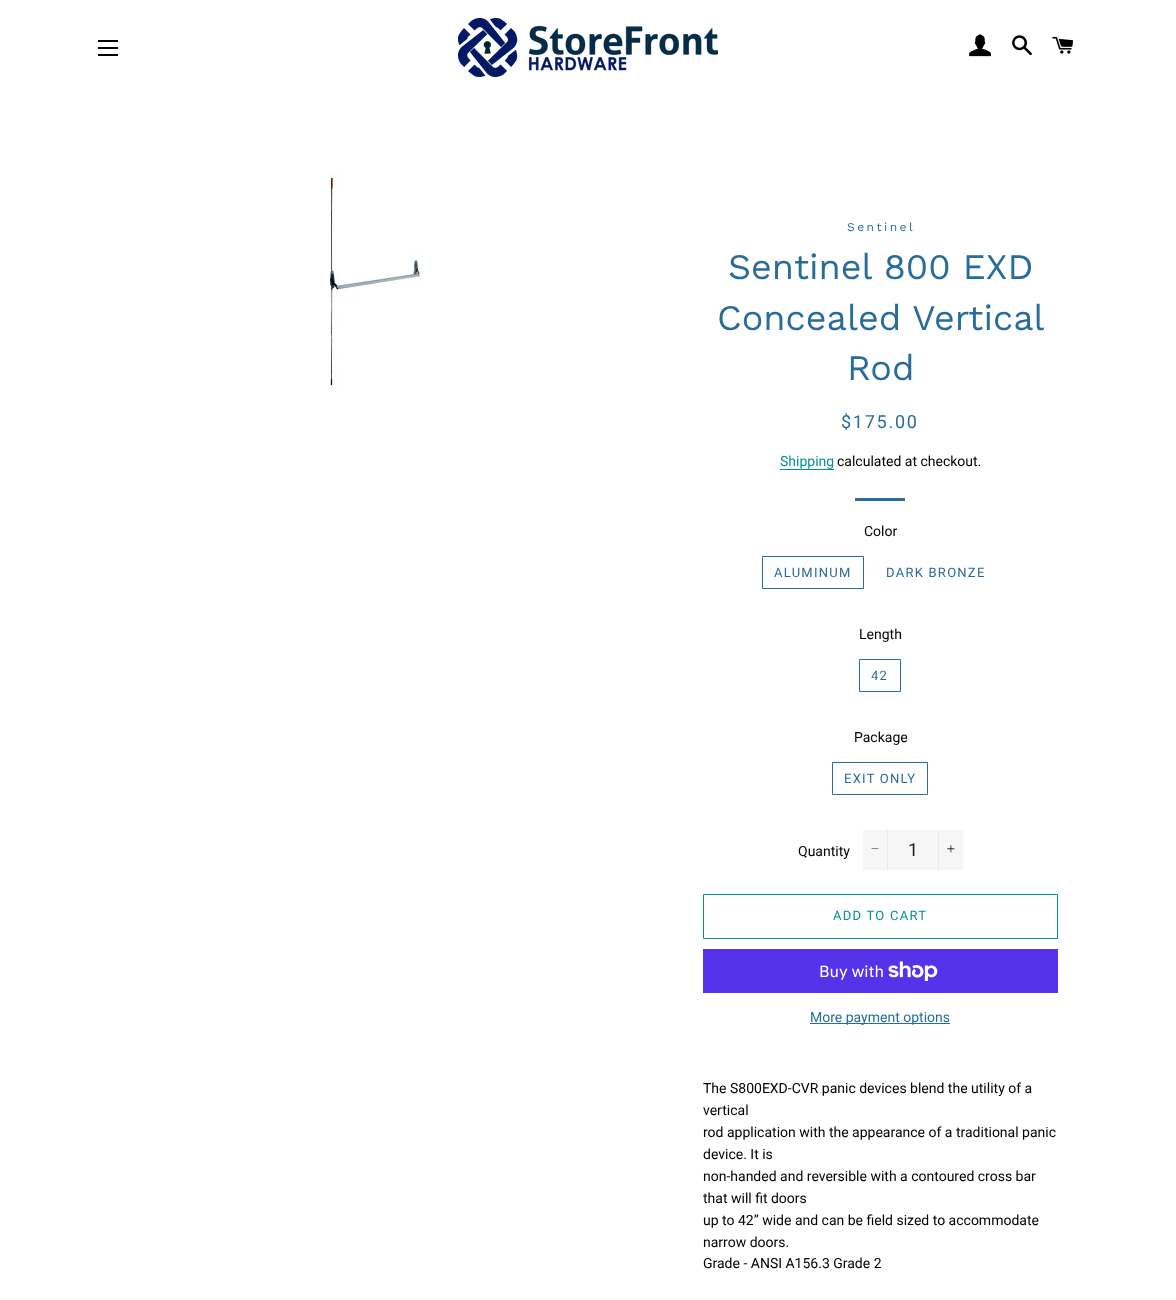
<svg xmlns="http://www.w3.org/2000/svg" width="1176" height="1300">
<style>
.a{font:12px Work Sans;letter-spacing:2.5px;fill:#286c99}
.b{font:36px Work Sans;fill:#286c99}
.c{font:18px Roboto;letter-spacing:1.75px;fill:#286c99}
.d{font:14px Roboto;fill:#009099}
.e{font:14px Roboto;fill:#000}
.f{font:13px Roboto;letter-spacing:1.25px;fill:#286c99}
.g{font:18px Roboto;fill:#1c1d1d}
.h{font:13px Roboto;letter-spacing:1.25px;fill:#009099}
.i{font:16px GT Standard;fill:#fff}
.j{font:14px Roboto;fill:#286c99}
</style>
<rect width="100%" height="100%" fill="#fff"/>
<path fill="#000" d="M98 40h20v2H98z"/>
<path fill="#000" d="M98 47h20v2H98z"/>
<path fill="#000" d="M98 54h20v2H98z"/>
<image href="1.png" x="458" y="18" width="260" height="59"/>
<image href="2.png" x="969" y="34" width="22" height="23"/>
<image href="3.png" x="1012" y="35" width="20" height="20"/>
<image href="4.png" x="1052" y="36" width="21" height="18"/>
<image href="5.png" x="329" y="174" width="93" height="212"/>
<path fill="#009099" d="M780 469h54v1H780z"/>
<path fill="#286c99" d="M855 498h50v3H855z"/>
<path fill="none" stroke="#286c99" d="M762.5 556.5h101v32H762.5z"/>
<path fill="none" stroke="#286c99" d="M859.5 659.5h41v32H859.5z"/>
<path fill="none" stroke="#286c99" d="M832.5 762.5h95v32H832.5z"/>
<path fill="#f6f6f6" d="M863 830h100v40H863z"/>
<path fill="#e9e9e9" d="M887 830h1v40H887z"/>
<path fill="#1c1d1d" d="M871.5 848.5h7v.5h-7z"/>
<path fill="#e9e9e9" d="M938 830h1v40H938z"/>
<image href="6.png" x="947" y="845" width="8" height="8"/>
<path fill="none" stroke="#009099" d="M703.5 894.5h354v44H703.5z"/>
<path fill="#5433eb" d="M703 949h355v44H703z"/>
<image href="7.png" x="888" y="961" width="50" height="20"/>
<path fill="#286c99" d="M810 1023h140v1H810z"/>
<text class="a" x="847" y="231">Sentinel</text>
<text class="b" x="728" y="279">Sentinel 800 EXD</text>
<text class="b" x="717" y="330">Concealed Vertical</text>
<text class="b" x="847" y="380">Rod</text>
<text class="c" x="841" y="428">$175.00</text>
<text class="d" x="780" y="466">Shipping</text>
<text class="e" x="837" y="466">calculated at checkout.</text>
<text class="e" x="864" y="536">Color</text>
<text class="f" x="774" y="577">ALUMINUM</text>
<text class="f" x="886" y="577">DARK BRONZE</text>
<text class="e" x="859" y="639">Length</text>
<text class="f" x="871" y="680">42</text>
<text class="e" x="854" y="742">Package</text>
<text class="f" x="844" y="783">EXIT ONLY</text>
<text class="e" x="798" y="856">Quantity</text>
<text class="g" x="908" y="856">1</text>
<text class="h" x="833" y="920">ADD TO CART</text>
<text class="i" x="819" y="977">Buy with</text>
<text class="j" x="810" y="1022">More payment options</text>
<text class="e" x="703" y="1093">The S800EXD-CVR panic devices blend the utility of a</text>
<text class="e" x="703" y="1115">vertical</text>
<text class="e" x="703" y="1137">rod application with the appearance of a traditional panic</text>
<text class="e" x="703" y="1159">device. It is</text>
<text class="e" x="703" y="1181">non-handed and reversible with a contoured cross bar</text>
<text class="e" x="703" y="1203">that will fit doors</text>
<text class="e" x="703" y="1225">up to 42” wide and can be field sized to accommodate</text>
<text class="e" x="703" y="1247">narrow doors.</text>
<text class="e" x="703" y="1268">Grade - ANSI A156.3 Grade 2</text>
</svg>
